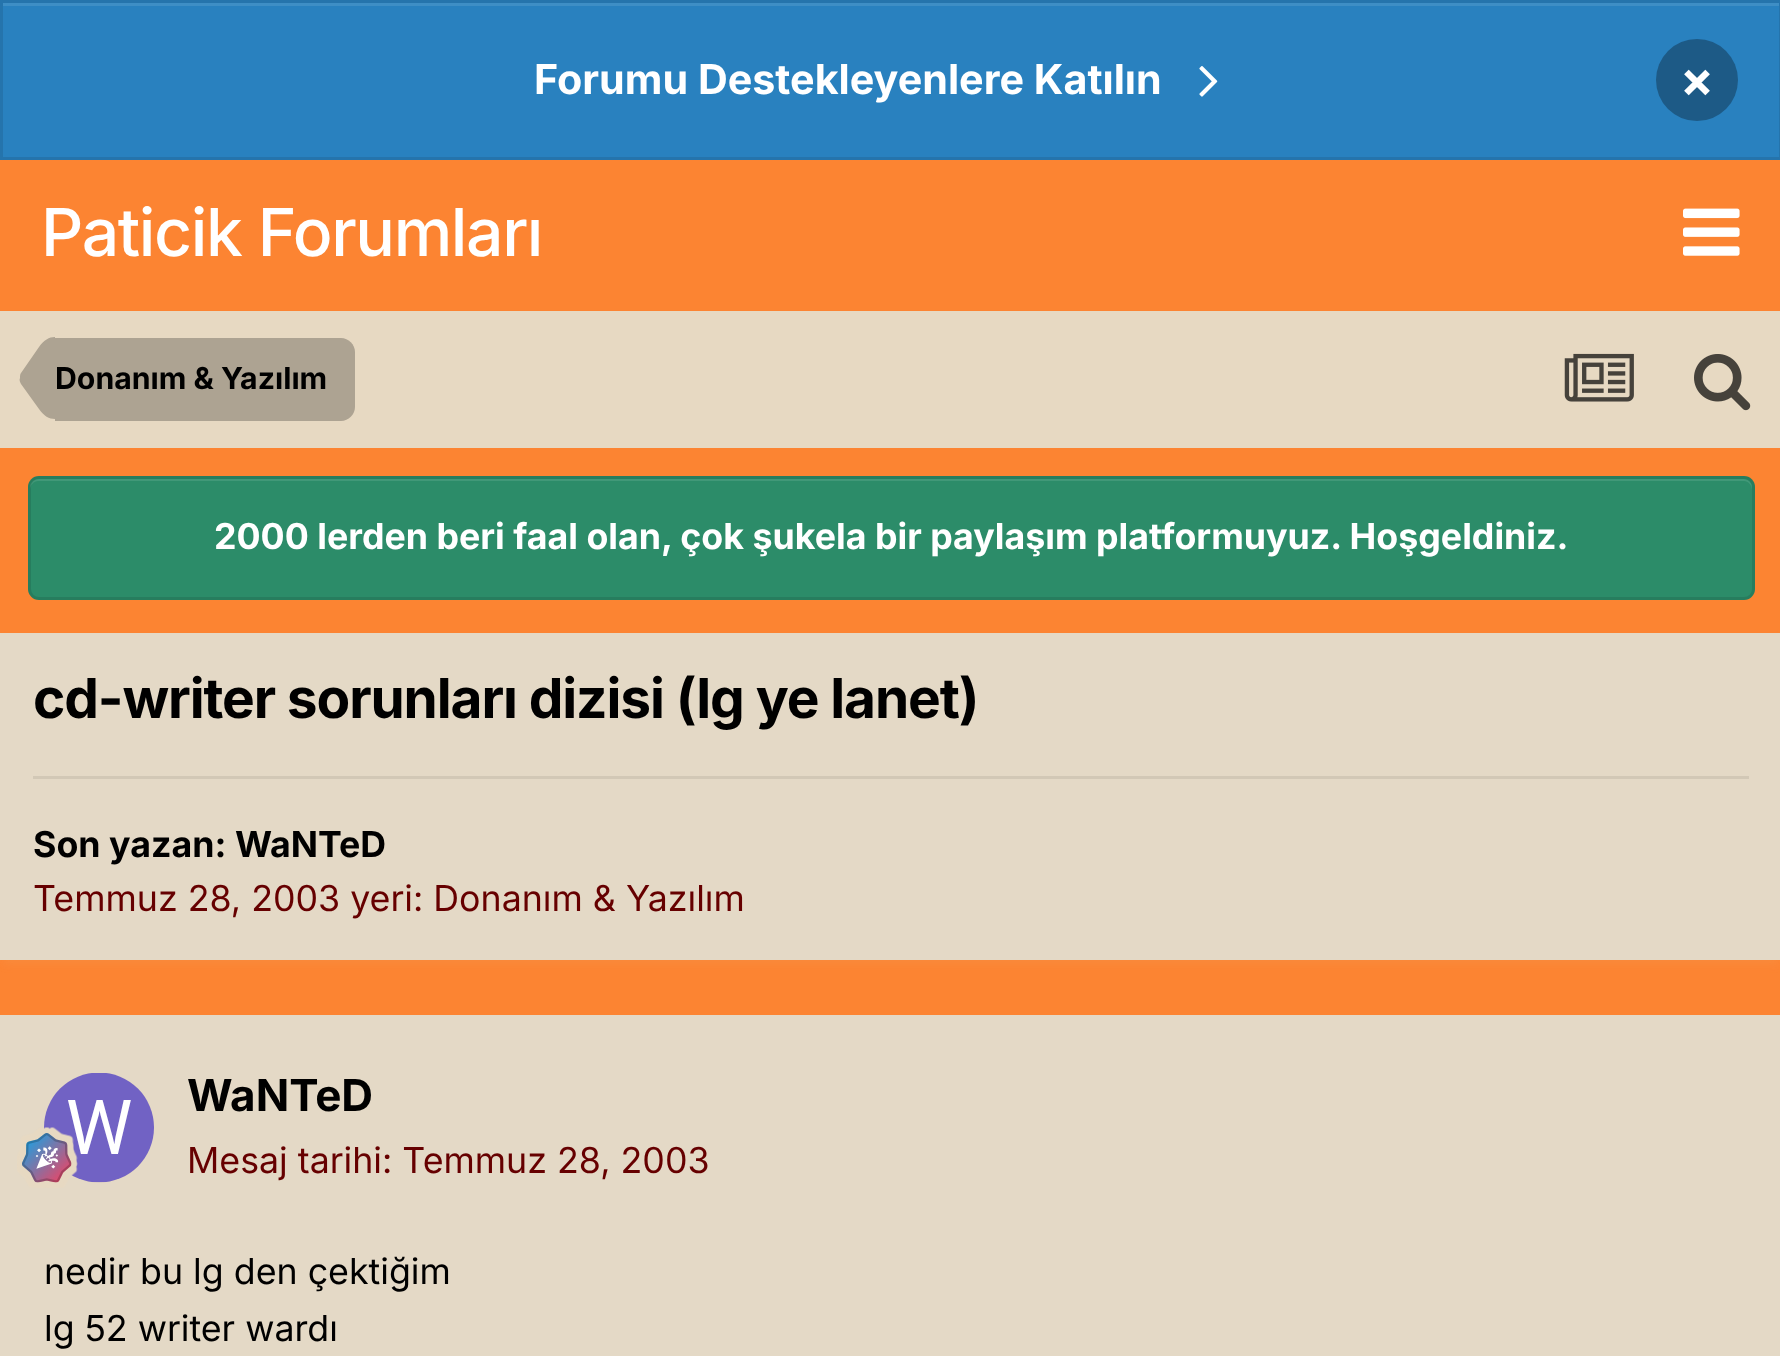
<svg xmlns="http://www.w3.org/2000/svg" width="1780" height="1356">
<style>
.a{font:bold 41.25px Inter;fill:#fff}
.b{font:bold 50px Inter;fill:#fff}
.c{font:500 66px Inter;letter-spacing:-1.4px;fill:#fff}
.d{font:bold 30.25px Inter;fill:#000}
.e{font:bold 35.75px Inter;fill:#fff}
.f{font:bold 55px Inter;letter-spacing:-1.1px;fill:#000}
.g{font:bold 35.75px Inter;fill:#000}
.h{font:35.75px Inter;fill:#600}
.i{font:bold 44px Inter;fill:#000}
.j{font:35.75px Inter;fill:#000}
</style>
<rect width="100%" height="100%" fill="#fc8432"/>
<path fill="#2981bf" d="M3 6h1776v151H3z"/>
<path fill="#3e8ec5" d="M3 3h1776v3H3z"/>
<path fill="none" stroke="#2574ac" stroke-width="3" d="M1.5 1.5h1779v157H1.5z"/>
<image href="1.png" x="1199" y="66" width="19" height="31"/>
<circle fill="#1d5a86" cx="1697" cy="80" r="41"/>
<image href="2.png" x="1683" y="208" width="57" height="48"/>
<path fill="#e7d9c2" d="M0 311h1780v137H0z"/>
<path fill="#ada392" d="M55 338h286c7.5 0 14 6.5 14 14v55c0 7.5-6.5 14-14 14h-286z"/>
<path fill="#ada392" d="M55 419c-6 0-11-3-16-10l-18-25c-1-2-2-4-1-6h35z"/>
<path fill="#ada392" d="M55 337v41h-35c0-2 0-4 1-5l18-26c5-7 10-10 16-10z"/>
<image href="3.png" x="1564" y="353" width="70" height="49"/>
<image href="4.png" x="1694" y="354" width="57" height="57"/>
<rect fill="#2c8c69" x="28" y="476" width="1727" height="124" rx="11"/>
<path fill="#419878" d="M38 481h1706c4 0 8 4 8 9v-3c0-4-4-8-8-8h-1706c-4 0-8 4-8 8v3c0-5 4-9 8-9z"/>
<rect fill="none" stroke="#0000001a" stroke-width="3" x="29.5" y="477.5" width="1724" height="121" rx="9.5"/>
<path fill="#e3cd9c1a" filter="blur(5.5px)" d="M3 641h1776v322H3z"/>
<path fill="#e4d9c6" d="M0 633h1780v327H0z"/>
<path fill="#d2c8b6" d="M33 776h1716v3H33z"/>
<path fill="#e4d9c6" d="M0 1015h1780v341H0z"/>
<circle fill="#e7d9c2" cx="99" cy="1128" r="55"/>
<image href="5.png" x="44" y="1073" width="110" height="110"/>
<image href="6.png" x="17" y="1127" width="61" height="61"/>
<text class="a" x="534" y="94">Forumu Destekleyenlere Katılın</text>
<text class="b" x="1680" y="97">×</text>
<text class="c" x="41" y="256">Paticik Forumları</text>
<text class="d" x="55" y="389">Donanım &amp; Yazılım</text>
<text class="e" x="214" y="549">2000 lerden beri faal olan, çok şukela bir paylaşım platformuyuz. Hoşgeldiniz.</text>
<text class="f" x="33" y="718">cd-writer sorunları dizisi (lg ye lanet)</text>
<text class="g" x="33" y="857">Son yazan: WaNTeD</text>
<text class="h" x="33" y="911">Temmuz 28, 2003 yeri: Donanım &amp; Yazılım</text>
<text class="i" x="187" y="1111">WaNTeD</text>
<text class="h" x="187" y="1173">Mesaj tarihi: Temmuz 28, 2003</text>
<text class="j" x="44" y="1284">nedir bu lg den çektiğim</text>
<text class="j" x="44" y="1341">lg 52 writer wardı</text>
</svg>
